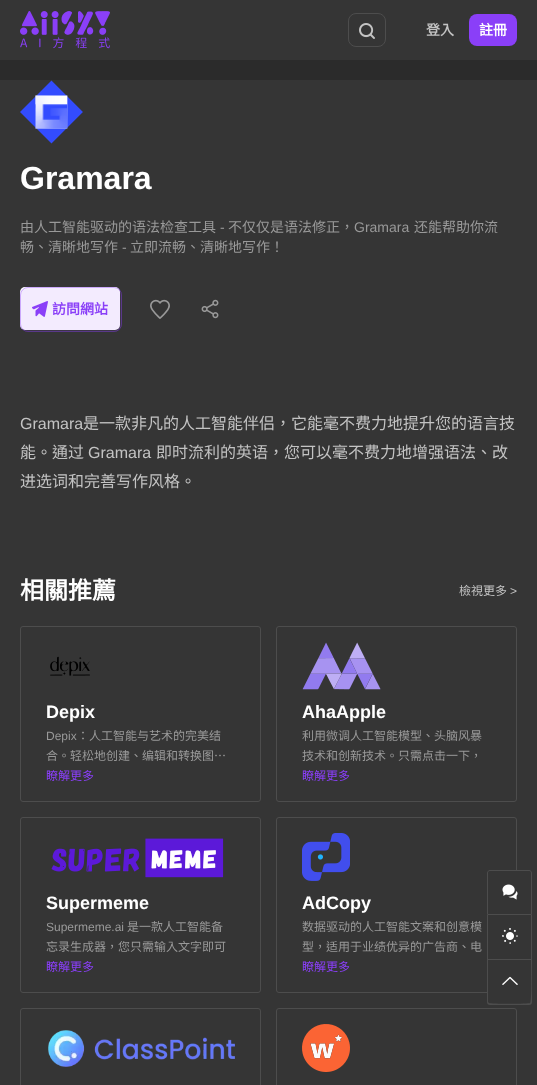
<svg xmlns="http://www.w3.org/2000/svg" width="537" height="1085">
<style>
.a{font:bold 14px Noto Sans CJK TC;fill:#c3c3c3}
.b{font:bold 14px Noto Sans CJK TC;fill:#fff}
.c{font:bold 32px Liberation Sans;fill:#fff}
.d{font:14px Noto Sans CJK TC;fill:#999}
.e{font:14px Liberation Sans;fill:#999}
.f{font:bold 14px Noto Sans CJK TC;fill:#8a3ff8}
.g{font:16px Liberation Sans;fill:#c3c3c3}
.h{font:16px Noto Sans CJK TC;fill:#c3c3c3}
.i{font:bold 24px Noto Sans CJK TC;fill:#fff}
.j{font:12px Noto Sans CJK TC;fill:#c3c3c3}
.k{font:12px Liberation Sans;fill:#c3c3c3}
.l{font:bold 18px Liberation Sans;fill:#fff}
.m{font:12px Liberation Sans;fill:#999}
.n{font:12px Noto Sans CJK TC;fill:#999}
.o{font:12px Noto Sans CJK TC;fill:#8a3ff8}
</style>
<rect width="100%" height="100%" fill="#2b2b2b"/>
<path fill="#353535" d="M0 0h537v60H0z"/>
<image href="1.png" x="20" y="11" width="90" height="38"/>
<rect fill="none" stroke="#4d4d4d" x="348.5" y="13.5" width="37" height="33" rx="7.5"/>
<image href="2.png" x="359" y="23" width="16" height="16"/>
<rect fill="#8a3ff8" x="469" y="14" width="48" height="32" rx="8"/>
<path fill="#353535" d="M0 80h537v1005H0z"/>
<image href="3.png" x="20" y="80" width="63" height="64"/>
<rect fill="#fff" x="20" y="287" width="100" height="43" rx="5"/>
<rect fill="none" stroke="#8a3ff84d" x="20.5" y="287.5" width="101" height="44" rx="7.5"/>
<rect fill="#8a3ff81a" x="20" y="287" width="102" height="45" rx="8"/>
<rect fill="none" stroke="#8a3ff81a" x="20.5" y="287.5" width="101" height="44" rx="7.5"/>
<image href="4.png" x="32" y="301" width="16" height="16"/>
<image href="5.png" x="150" y="299" width="20" height="20"/>
<image href="6.png" x="201" y="299" width="18" height="20"/>
<rect fill="none" stroke="#4d4d4d" x="20.5" y="626.5" width="240" height="175" rx="2.5"/>
<image href="7.png" x="50" y="656" width="40" height="20"/>
<rect fill="none" stroke="#4d4d4d" x="276.5" y="626.5" width="240" height="175" rx="2.5"/>
<image href="8.png" x="302" y="642" width="79" height="48"/>
<rect fill="none" stroke="#4d4d4d" x="20.5" y="817.5" width="240" height="175" rx="2.5"/>
<image href="9.png" x="51" y="838" width="173" height="40"/>
<rect fill="none" stroke="#4d4d4d" x="276.5" y="817.5" width="240" height="175" rx="2.5"/>
<image href="10.png" x="302" y="833" width="48" height="48"/>
<rect fill="none" stroke="#4d4d4d" x="20.5" y="1008.5" width="240" height="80" rx="2.5"/>
<image href="11.png" x="48" y="1030" width="187" height="37"/>
<rect fill="none" stroke="#4d4d4d" x="276.5" y="1008.5" width="240" height="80" rx="2.5"/>
<image href="12.png" x="302" y="1024" width="48" height="48"/>
<path fill="#353535" stroke="#4d4d4d" d="M490 870.5h39c1.5 0 2.5 1 2.5 2.5v41.5h-44v-41.5c0-1.5 1-2.5 2.5-2.5z"/>
<image href="13.png" x="502" y="884" width="16" height="16"/>
<path fill="#353535" d="M516 915h1v44H516z"/>
<path fill="#4d4d4d" d="M531 915h1v45H531z"/>
<path fill="#4d4d4d" d="M487 959h45v1H487z"/>
<path fill="#4d4d4d" d="M487 915h1v45H487z"/>
<image href="14.png" x="502" y="928" width="16" height="16"/>
<path fill="#353535" d="M487 960h45v42c0 1.5-1.5 3-3 3h-39c-1.5 0-3-1.5-3-3z"/>
<path fill="#4d4d4d" fill-rule="evenodd" d="M487 960h45v42c0 2-1 3-3 3h-39c-2 0-3-1-3-3zm1 0h43c0 5 1 42-1 43c-1 1-40 1-41 0l-1-1z"/>
<image href="15.png" x="502" y="976" width="16" height="9"/>
<text class="a" x="426" y="35">登入</text>
<text class="b" x="479" y="35">註冊</text>
<text class="c" x="20" y="189">Gramara</text>
<text class="d" x="20" y="232">由人工智能驱动的语法检查工具</text>
<text class="e" x="220" y="232">-</text>
<text class="d" x="228" y="232">不仅仅是语法修正，</text>
<text class="e" x="354" y="232">Gramara</text>
<text class="d" x="414" y="232">还能帮助你流</text>
<text class="d" x="20" y="252">畅、清晰地写作</text>
<text class="e" x="122" y="252">-</text>
<text class="d" x="130" y="252">立即流畅、清晰地写作！</text>
<text class="f" x="52" y="314">訪問網站</text>
<text class="g" x="20" y="429">Gramara</text>
<text class="h" x="83" y="429">是一款非凡的人工智能伴侣，它能毫不费力地提升您的语言技</text>
<text class="h" x="20" y="458">能。通过</text>
<text class="g" x="88" y="458">Gramara</text>
<text class="h" x="156" y="458">即时流利的英语，您可以毫不费力地增强语法、改</text>
<text class="h" x="20" y="487">进选词和完善写作风格。</text>
<text class="i" x="20" y="599">相關推薦</text>
<text class="j" x="459" y="595">檢視更多</text>
<text class="k" x="510" y="595">&gt;</text>
<text class="l" x="46" y="718">Depix</text>
<text class="m" x="46" y="740">Depix</text>
<text class="n" x="77" y="740">：人工智能与艺术的完美结</text>
<text class="n" x="46" y="760">合。轻松地创建、编辑和转换图…</text>
<text class="o" x="46" y="780">瞭解更多</text>
<text class="l" x="302" y="718">AhaApple</text>
<text class="n" x="302" y="740">利用微调人工智能模型、头脑风暴</text>
<text class="n" x="302" y="760">技术和创新技术。只需点击一下，</text>
<text class="o" x="302" y="780">瞭解更多</text>
<text class="l" x="46" y="909">Supermeme</text>
<text class="m" x="46" y="931">Supermeme.ai</text>
<text class="n" x="127" y="931">是一款人工智能备</text>
<text class="n" x="46" y="951">忘录生成器，您只需输入文字即可</text>
<text class="o" x="46" y="971">瞭解更多</text>
<text class="l" x="302" y="909">AdCopy</text>
<text class="n" x="302" y="931">数据驱动的人工智能文案和创意模</text>
<text class="n" x="302" y="951">型，适用于业绩优异的广告商、电</text>
<text class="o" x="302" y="971">瞭解更多</text>
</svg>
